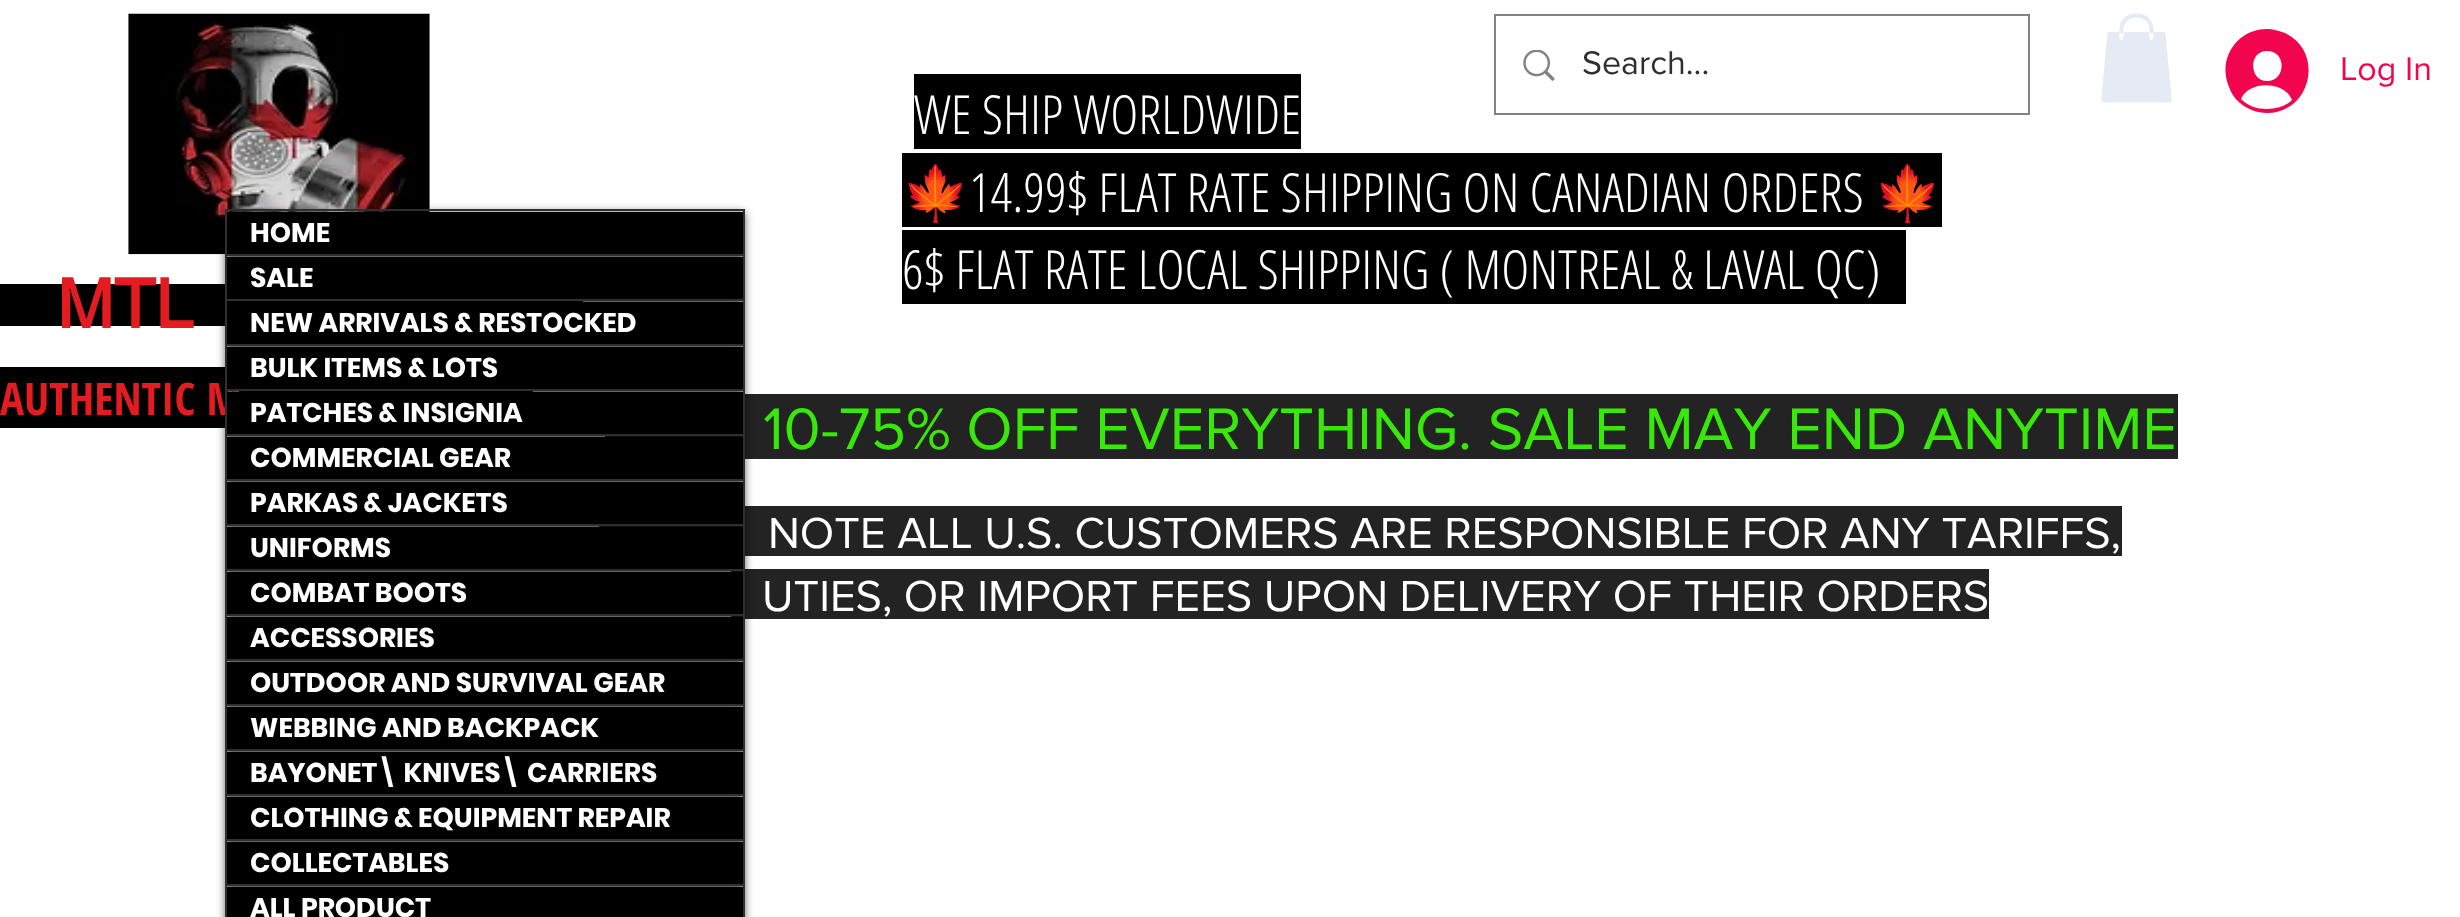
<svg xmlns="http://www.w3.org/2000/svg" width="2460" height="917">
<style>
.a{font:34px 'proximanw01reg';fill:#2f2f30}
.b{font:34px 'proximanw01reg';fill:#f1054f}
.c{font:300 54px Open Sans Condensed;fill:#fff}
.d{font:54px Noto Color Emoji;fill:#fff}
.e{font:bold 68px helvetica;fill:#e21c21}
.f{font:bold 45px Open Sans Condensed;fill:#e21c21}
.g{font:60.75px 'proximanw01reg';fill:#38e809}
.h{font:45px 'proximanw01reg';fill:#fff}
.i{font:bold 27px Poppins;fill:#fff}
</style>
<rect width="100%" height="100%" fill="#fff"/>
<image href="1.png" x="128" y="13" width="302" height="242"/>
<path fill="none" stroke="#828283" stroke-width="2" d="M1495 15h534v99H1495z"/>
<image href="2.png" x="1523" y="50" width="32" height="31"/>
<image href="3.png" x="2101" y="13" width="71" height="90"/>
<path fill="#f1054f" fill-rule="evenodd" d="M2267 29c6 0 12 2 18 4c40 19 26 80-18 80c-10 0-20-4-27-10c-5-4-9-10-11-16c-12-28 8-58 38-58zm0 22c-19 0-18 30 0 30c19 0 20-30 0-30zm0 58c10 0 19-3 25-9c-7-19-43-20-51-1c7 7 16 10 26 10z"/>
<path fill="#000" d="M914 74h387v75H914z"/>
<path fill="#000" d="M902 153h1040v74H902z"/>
<path fill="#000" d="M0 284h583v42H0z"/>
<path fill="#000" d="M902 230h1004v74H902z"/>
<path fill="#000" d="M0 367h533v61H0z"/>
<path fill="#232323" d="M605 394h1573v65H605z"/>
<path fill="#232323" d="M599 506h1523v50H599z"/>
<path fill="#232323" d="M731 569h1258v50H731z"/>
<path fill="#00000099" filter="blur(4.5px)" d="M225 212h520v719H225z"/>
<text class="a" x="1582" y="74">Search...</text>
<text class="b" x="2340" y="80">Log In</text>
<text class="c" x="914" y="134">WE SHIP WORLDWIDE</text>
<text class="d" x="902" y="212">🍁</text>
<text class="c" x="969" y="212">14.99$ FLAT RATE SHIPPING ON CANADIAN ORDERS</text>
<text class="d" x="1874" y="212">🍁</text>
<text class="e" x="57" y="328">MTL</text>
<text class="c" x="902" y="289">6$ FLAT RATE LOCAL SHIPPING ( MONTREAL &amp; LAVAL QC)</text>
<text class="f" x="0" y="415">AUTHENTIC M</text>
<text class="g" x="763" y="449">10-75% OFF EVERYTHING. SALE MAY END ANYTIME</text>
<text class="h" x="768" y="548">NOTE ALL U.S. CUSTOMERS ARE RESPONSIBLE FOR ANY TARIFFS,</text>
<text class="h" x="762" y="611">UTIES, OR IMPORT FEES UPON DELIVERY OF THEIR ORDERS</text>
<path fill="none" stroke="#2f2f30" stroke-width="2" d="M226 210h518v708H226z"/>
<path fill="#2f2f30" d="M227 254h516v2H227z"/>
<path fill="#000" d="M227 212h516v42H227z"/>
<text class="i" x="250" y="242">HOME</text>
<path fill="#2f2f30" d="M227 299h516v2H227z"/>
<path fill="#000" d="M227 257h516v42H227z"/>
<text class="i" x="250" y="287">SALE</text>
<path fill="#2f2f30" d="M227 344h516v2H227z"/>
<path fill="#000" d="M227 302h516v42H227z"/>
<text class="i" x="250" y="332">NEW ARRIVALS &amp; RESTOCKED</text>
<path fill="#2f2f30" d="M227 389h516v2H227z"/>
<path fill="#000" d="M227 347h516v42H227z"/>
<text class="i" x="250" y="377">BULK ITEMS &amp; LOTS</text>
<path fill="#2f2f30" d="M227 434h516v2H227z"/>
<path fill="#000" d="M227 392h516v42H227z"/>
<text class="i" x="250" y="422">PATCHES &amp; INSIGNIA</text>
<path fill="#2f2f30" d="M227 479h516v2H227z"/>
<path fill="#000" d="M227 437h516v42H227z"/>
<text class="i" x="250" y="467">COMMERCIAL GEAR</text>
<path fill="#2f2f30" d="M227 524h516v2H227z"/>
<path fill="#000" d="M227 482h516v42H227z"/>
<text class="i" x="250" y="512">PARKAS &amp; JACKETS</text>
<path fill="#2f2f30" d="M227 569h516v2H227z"/>
<path fill="#000" d="M227 527h516v42H227z"/>
<text class="i" x="250" y="557">UNIFORMS</text>
<path fill="#2f2f30" d="M227 614h516v2H227z"/>
<path fill="#000" d="M227 572h516v42H227z"/>
<text class="i" x="250" y="602">COMBAT BOOTS</text>
<path fill="#2f2f30" d="M227 659h516v2H227z"/>
<path fill="#000" d="M227 617h516v42H227z"/>
<text class="i" x="250" y="647">ACCESSORIES</text>
<path fill="#2f2f30" d="M227 704h516v2H227z"/>
<path fill="#000" d="M227 662h516v42H227z"/>
<text class="i" x="250" y="692">OUTDOOR AND SURVIVAL GEAR</text>
<path fill="#2f2f30" d="M227 749h516v2H227z"/>
<path fill="#000" d="M227 707h516v42H227z"/>
<text class="i" x="250" y="737">WEBBING AND BACKPACK</text>
<path fill="#2f2f30" d="M227 794h516v2H227z"/>
<path fill="#000" d="M227 752h516v42H227z"/>
<text class="i" x="250" y="782">BAYONET\ KNIVES\ CARRIERS</text>
<path fill="#2f2f30" d="M227 839h516v2H227z"/>
<path fill="#000" d="M227 797h516v42H227z"/>
<text class="i" x="250" y="827">CLOTHING &amp; EQUIPMENT REPAIR</text>
<path fill="#2f2f30" d="M227 884h516v2H227z"/>
<path fill="#000" d="M227 842h516v42H227z"/>
<text class="i" x="250" y="872">COLLECTABLES</text>
<path fill="#000" d="M227 887h516v30H227z"/>
<text class="i" x="250" y="917">ALL PRODUCT</text>
</svg>
